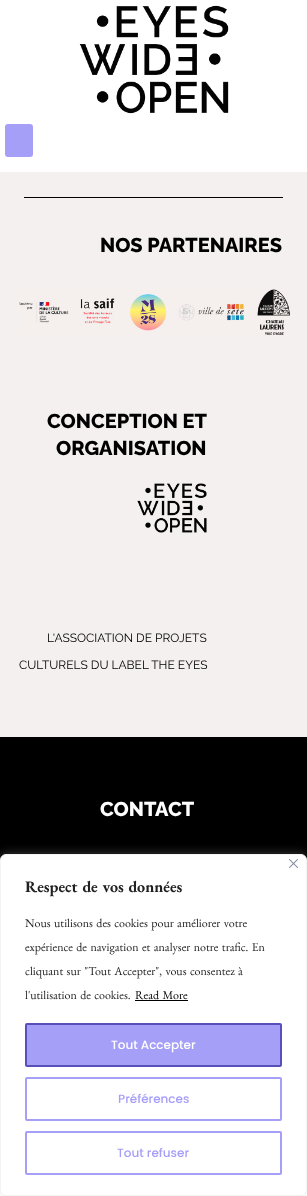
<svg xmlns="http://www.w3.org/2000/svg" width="307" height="1196">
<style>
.a{font:800 20px Raleway;fill:#000}
.b{font:12px Raleway;fill:#000}
.c{font:800 20px Raleway;fill:#fff}
.d{font:bold 16px EB Garamond;fill:#212121}
.e{font:12px EB Garamond;fill:#212121}
.f{font:12px EB Garamond;fill:#000}
.g{font:500 12px Poppins;fill:#fff}
.h{font:500 12px Poppins;fill:#a69ff8}
</style>
<rect width="100%" height="100%" fill="#fff"/>
<image href="1.png" x="79" y="5" width="150" height="109"/>
<rect fill="#a69ff8" x="5" y="124" width="28" height="33" rx="3"/>
<path fill="#f3f0ef" d="M0 172h307v565H0z"/>
<path fill="#000" d="M24 197h259v1H24z"/>
<image href="2.png" x="19" y="289" width="271" height="46"/>
<image href="3.png" x="137" y="483" width="70" height="50"/>
<path fill="#000" d="M0 737h307v123H0z"/>
<rect fill="#acabab4d" filter="blur(5px)" y="853" width="307" height="342" rx="6"/>
<rect fill="#fff" stroke="#f4f4f4" x="0.5" y="854.5" width="306" height="341" rx="5.5"/>
<image href="4.png" x="289" y="859" width="9" height="9"/>
<path fill="#000" d="M135 1000h53v1H135z"/>
<rect fill="#a69ff8" stroke="#5850ba" stroke-width="2" x="26" y="1024" width="255" height="42" rx="1"/>
<rect fill="none" stroke="#a69ff8" stroke-width="2" x="26" y="1078" width="255" height="42" rx="1"/>
<rect fill="none" stroke="#a69ff8" stroke-width="2" x="26" y="1132" width="255" height="42" rx="1"/>
<text class="a" x="100" y="252">NOS PARTENAIRES</text>
<text class="a" x="47" y="428">CONCEPTION ET</text>
<text class="a" x="56" y="455">ORGANISATION</text>
<text class="b" x="47" y="642">L'ASSOCIATION DE PROJETS</text>
<text class="b" x="19" y="669">CULTURELS DU LABEL THE EYES</text>
<text class="c" x="100" y="816">CONTACT</text>
<text class="d" x="25" y="892" word-spacing="1">Respect de vos données</text>
<text class="e" x="25" y="927" word-spacing="1">Nous utilisons des cookies pour améliorer votre</text>
<text class="e" x="25" y="951" word-spacing="1">expérience de navigation et analyser notre trafic. En</text>
<text class="e" x="25" y="975" word-spacing="1">cliquant sur "Tout Accepter", vous consentez à</text>
<text class="e" x="25" y="999" word-spacing="1">l'utilisation de cookies.</text>
<text class="f" x="135" y="999" word-spacing="1">Read More</text>
<text class="g" x="111" y="1049">Tout Accepter</text>
<text class="h" x="118" y="1103">Préférences</text>
<text class="h" x="117" y="1157">Tout refuser</text>
</svg>
